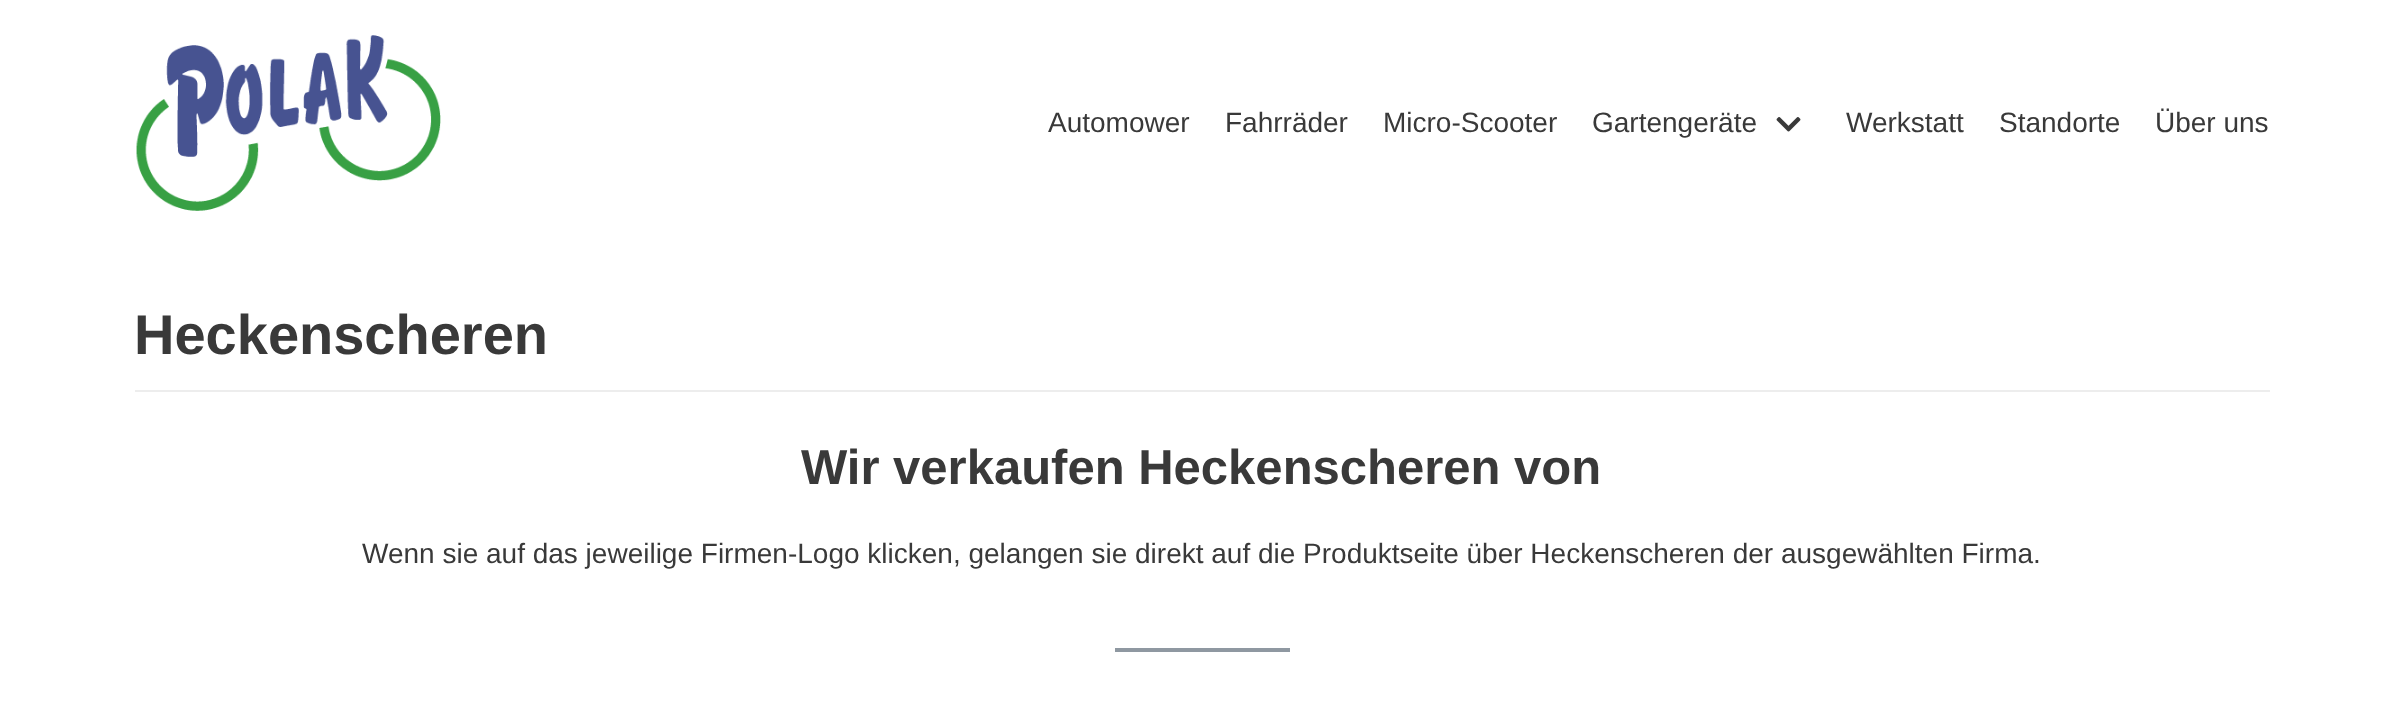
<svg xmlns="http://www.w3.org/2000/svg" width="2402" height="708">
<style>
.a{font:28px Liberation Sans;fill:#393939}
.b{font:bold 56px Liberation Sans;fill:#393939}
.c{font:bold 49px Liberation Sans;fill:#393939}
</style>
<rect width="100%" height="100%" fill="#fff"/>
<image href="1.png" x="136" y="35" width="305" height="176"/>
<image href="2.png" x="1776" y="117" width="25" height="15"/>
<path fill="#ededed" d="M135 390h2135v2H135z"/>
<path fill="#8f98a1" d="M1115 648h175v4H1115z"/>
<text class="a" x="1048" y="132">Automower</text>
<text class="a" x="1225" y="132">Fahrräder</text>
<text class="a" x="1383" y="132">Micro-Scooter</text>
<text class="a" x="1592" y="132">Gartengeräte</text>
<text class="a" x="1846" y="132">Werkstatt</text>
<text class="a" x="1999" y="132">Standorte</text>
<text class="a" x="2155" y="132">Über uns</text>
<text class="b" x="134" y="354">Heckenscheren</text>
<text class="c" x="801" y="484">Wir verkaufen Heckenscheren von</text>
<text class="a" x="362" y="563">Wenn sie auf das jeweilige Firmen-Logo klicken, gelangen sie direkt auf die Produktseite über Heckenscheren der ausgewählten Firma.</text>
</svg>
